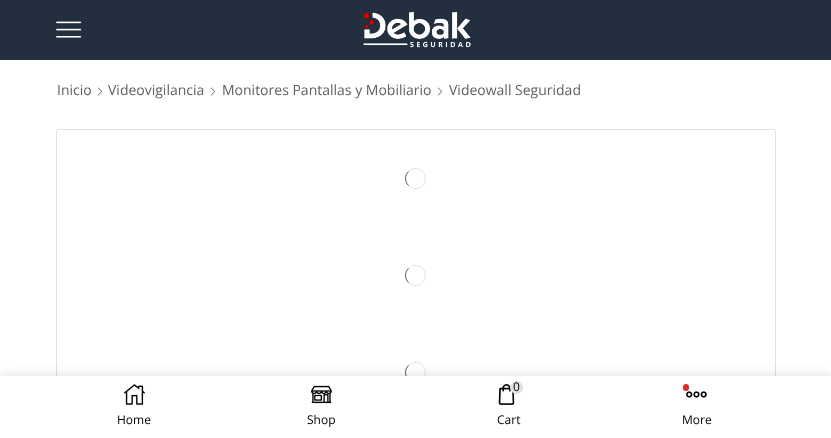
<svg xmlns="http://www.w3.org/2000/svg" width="831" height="438">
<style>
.a{font:14px Open Sans;fill:#606060}
.b{font:12px Open Sans;fill:#000}
</style>
<rect width="100%" height="100%" fill="#fff"/>
<path fill="#232f3f" d="M0 0h831v60H0z"/>
<image href="1.png" x="56" y="21" width="26" height="17"/>
<image href="2.png" x="363" y="11" width="108" height="37"/>
<image href="3.png" x="97" y="87" width="6" height="9"/>
<image href="3.png" x="210" y="87" width="6" height="9"/>
<image href="3.png" x="437" y="87" width="6" height="9"/>
<rect fill="none" stroke="#e1e1e1" x="56.5" y="129.5" width="719" height="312" rx="2.5"/>
<path fill="none" stroke="#e1e1e1" d="M408.5 171.5c2-2 4.5-3 7-3c12 0 13.5 17.5 2 20c-3.5 .5-6.5-.5-9-3"/>
<path fill="none" stroke="#555" d="M408.5 185.5c-4-4-4-10 0-14"/>
<path fill="none" stroke="#e1e1e1" d="M408.5 268.5c2.5-2.5 5.5-3.5 9-3c11.5 2.5 10 20-2 20c-2.5 0-5-1-7-3"/>
<path fill="none" stroke="#555" d="M408.5 282.5c-4-4-4-10 0-14"/>
<path fill="none" stroke="#e1e1e1" d="M408.5 365.5c2.5-2.5 5.5-3.5 9-3c11.5 2.5 10 20-2 20c-2.5 0-5-1-7-3"/>
<path fill="none" stroke="#555" d="M408.5 379.5c-4-4-4-10 0-14"/>
<path fill="#00000026" filter="blur(6px)" d="M2 376h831v62H2z"/>
<path fill="#fff" d="M0 376h831v62H0z"/>
<image href="4.png" x="124" y="384" width="21" height="21"/>
<image href="5.png" x="311" y="385" width="21" height="19"/>
<image href="6.png" x="498" y="384" width="17" height="21"/>
<circle fill="#e1e1e1" cx="516.5" cy="387.5" r="6.5"/>
<rect fill="#db2d2f" x="683" y="384" width="6" height="7" rx="3"/>
<image href="7.png" x="686" y="391" width="21" height="7"/>
<text class="a" x="57" y="95">Inicio</text>
<text class="a" x="108" y="95">Videovigilancia</text>
<text class="a" x="222" y="95">Monitores Pantallas y Mobiliario</text>
<text class="a" x="449" y="95">Videowall Seguridad</text>
<text class="b" x="117" y="424">Home</text>
<text class="b" x="307" y="424">Shop</text>
<text class="b" x="513" y="391">0</text>
<text class="b" x="497" y="424">Cart</text>
<text class="b" x="682" y="424">More</text>
</svg>
